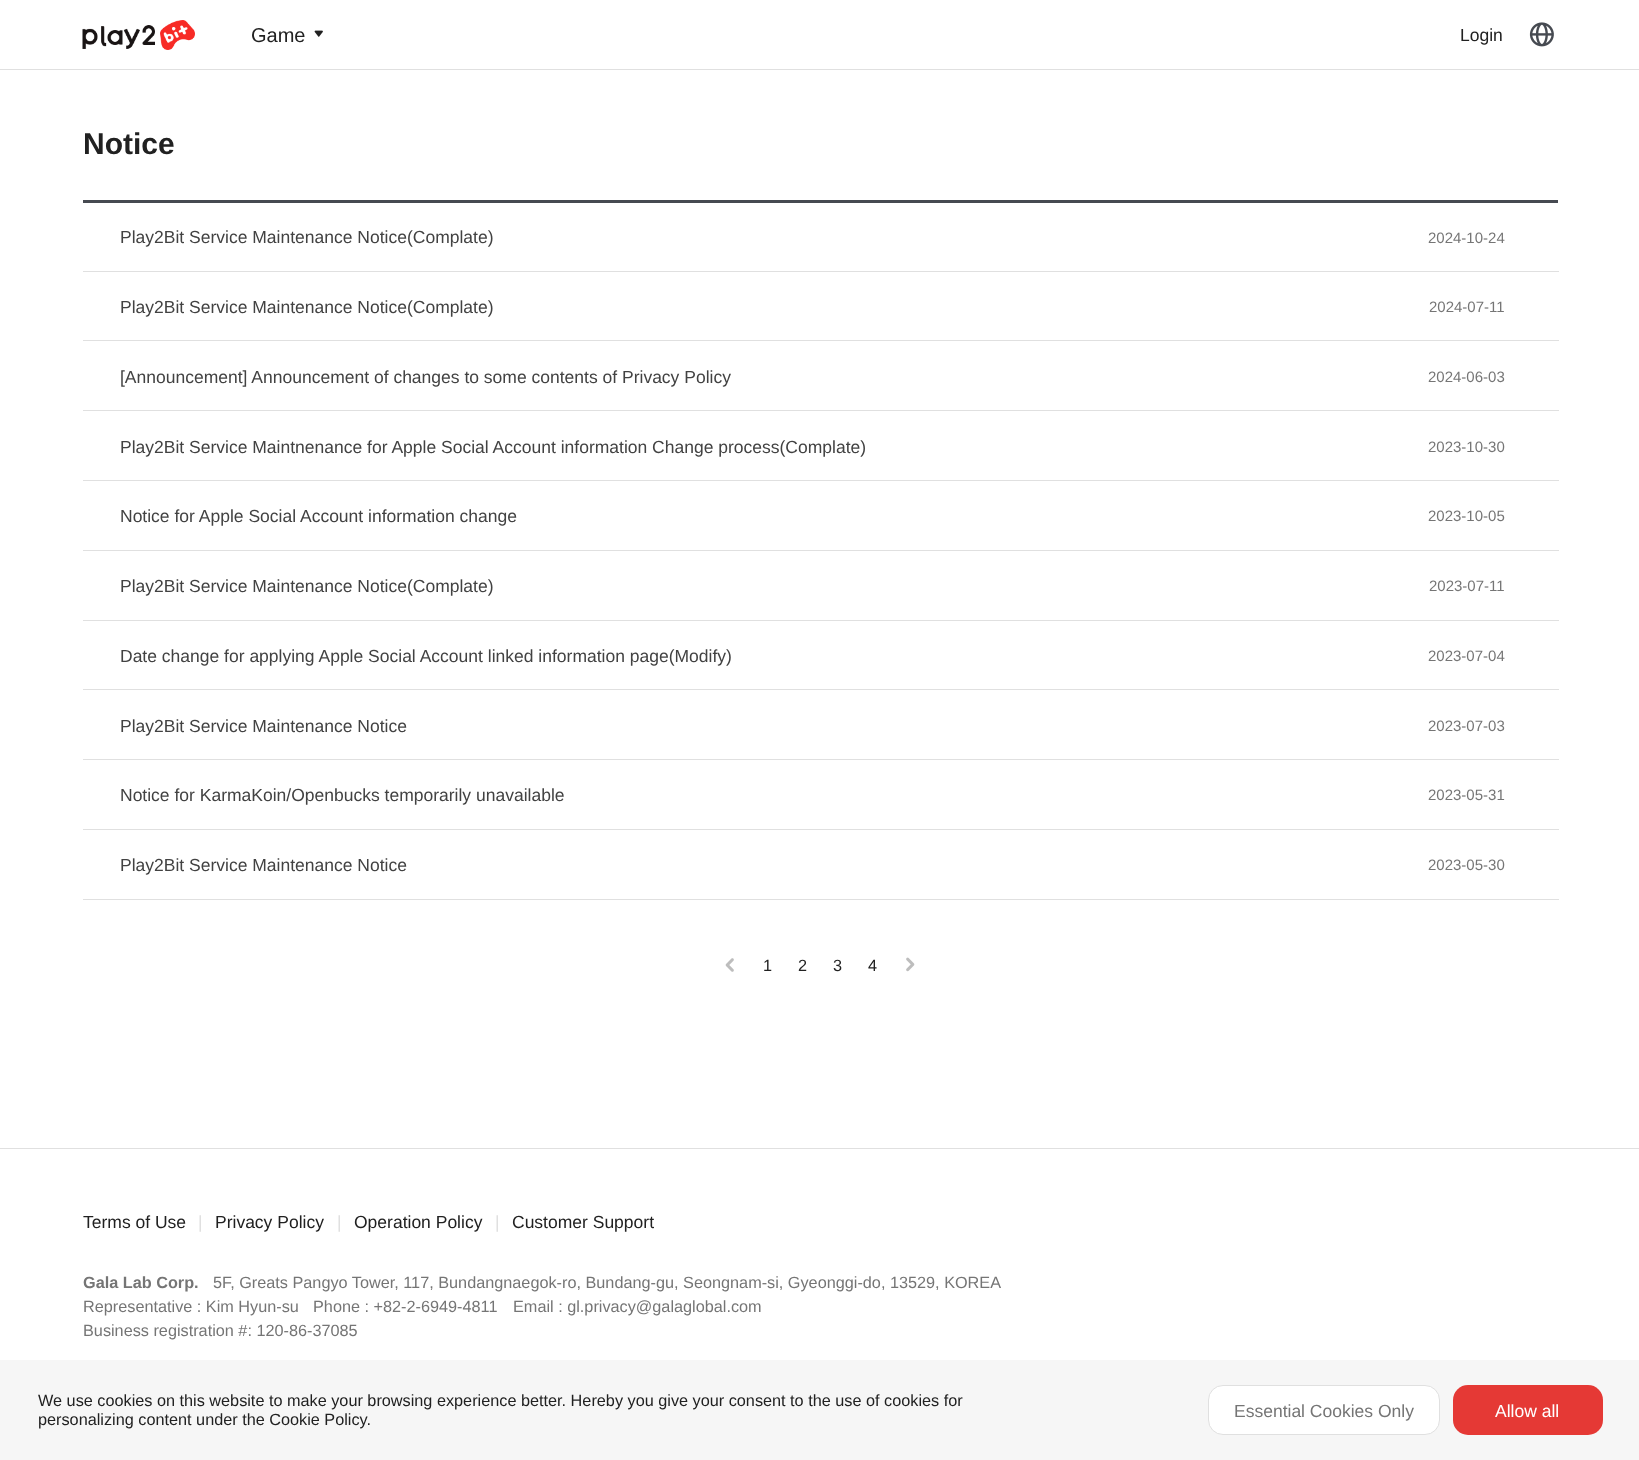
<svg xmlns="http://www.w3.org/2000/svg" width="1639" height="1460">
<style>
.a{font:20px Liberation Sans;fill:#212121}
.b{font:17.5px Liberation Sans;fill:#212121}
.c{font:bold 30px Liberation Sans;fill:#212121}
.d{font:17.5px Liberation Sans;fill:#424242}
.e{font:15px Liberation Sans;fill:#757575}
.f{font:16.25px Liberation Sans;fill:#212121}
.g{font:17.5px Liberation Sans;fill:#e0e0e0}
.h{font:bold 16.25px Liberation Sans;fill:#757575}
.i{font:16.25px Liberation Sans;fill:#757575}
.j{font:17.5px Liberation Sans;fill:#757575}
.k{font:17.5px Liberation Sans;fill:#fff}
</style>
<rect width="100%" height="100%" fill="#fff"/>
<path fill="#e0e0e0" d="M0 69h1639v1H0z"/>
<image href="1.png" x="82" y="20" width="113" height="30"/>
<image href="2.png" x="314" y="30" width="9" height="7"/>
<image href="3.png" x="1529" y="22" width="25" height="25"/>
<path fill="#464a51" d="M83 200h1475v3H83z"/>
<path fill="#e0e0e0" d="M83 271h1476v1H83z"/>
<path fill="#e0e0e0" d="M83 340h1476v1H83z"/>
<path fill="#e0e0e0" d="M83 410h1476v1H83z"/>
<path fill="#e0e0e0" d="M83 480h1476v1H83z"/>
<path fill="#e0e0e0" d="M83 550h1476v1H83z"/>
<path fill="#e0e0e0" d="M83 620h1476v1H83z"/>
<path fill="#e0e0e0" d="M83 689h1476v1H83z"/>
<path fill="#e0e0e0" d="M83 759h1476v1H83z"/>
<path fill="#e0e0e0" d="M83 829h1476v1H83z"/>
<path fill="#e0e0e0" d="M83 899h1476v1H83z"/>
<image href="4.png" x="725" y="958" width="9" height="14"/>
<image href="5.png" x="906" y="957" width="9" height="15"/>
<path fill="#e0e0e0" d="M0 1148h1639v1H0z"/>
<path fill="#f6f6f6" d="M0 1360h1639v100H0z"/>
<rect fill="#fff" stroke="#e0e0e0" x="1208.5" y="1385.5" width="231" height="49" rx="14.5"/>
<rect fill="#e53935" x="1453" y="1385" width="150" height="50" rx="15"/>
<text class="a" x="251" y="42">Game</text>
<text class="b" x="1460" y="41">Login</text>
<text class="c" x="83" y="154">Notice</text>
<text class="d" x="120" y="243">Play2Bit Service Maintenance Notice(Complate)</text>
<text class="e" x="1428" y="243">2024-10-24</text>
<text class="d" x="120" y="313">Play2Bit Service Maintenance Notice(Complate)</text>
<text class="e" x="1429" y="312">2024-07-11</text>
<text class="d" x="120" y="383">[Announcement] Announcement of changes to some contents of Privacy Policy</text>
<text class="e" x="1428" y="382">2024-06-03</text>
<text class="d" x="120" y="453">Play2Bit Service Maintnenance for Apple Social Account information Change process(Complate)</text>
<text class="e" x="1428" y="452">2023-10-30</text>
<text class="d" x="120" y="522">Notice for Apple Social Account information change</text>
<text class="e" x="1428" y="521">2023-10-05</text>
<text class="d" x="120" y="592">Play2Bit Service Maintenance Notice(Complate)</text>
<text class="e" x="1429" y="591">2023-07-11</text>
<text class="d" x="120" y="662">Date change for applying Apple Social Account linked information page(Modify)</text>
<text class="e" x="1428" y="661">2023-07-04</text>
<text class="d" x="120" y="732">Play2Bit Service Maintenance Notice</text>
<text class="e" x="1428" y="731">2023-07-03</text>
<text class="d" x="120" y="801">Notice for KarmaKoin/Openbucks temporarily unavailable</text>
<text class="e" x="1428" y="800">2023-05-31</text>
<text class="d" x="120" y="871">Play2Bit Service Maintenance Notice</text>
<text class="e" x="1428" y="870">2023-05-30</text>
<text class="f" x="763" y="971">1</text>
<text class="f" x="798" y="971">2</text>
<text class="f" x="833" y="971">3</text>
<text class="f" x="868" y="971">4</text>
<text class="b" x="83" y="1228">Terms of Use</text>
<text class="g" x="198" y="1228">|</text>
<text class="b" x="215" y="1228">Privacy Policy</text>
<text class="g" x="337" y="1228">|</text>
<text class="b" x="354" y="1228">Operation Policy</text>
<text class="g" x="495" y="1228">|</text>
<text class="b" x="512" y="1228">Customer Support</text>
<text class="h" x="83" y="1288">Gala Lab Corp.</text>
<text class="i" x="213" y="1288">5F, Greats Pangyo Tower, 117, Bundangnaegok-ro, Bundang-gu, Seongnam-si, Gyeonggi-do, 13529, KOREA</text>
<text class="i" x="83" y="1312">Representative : Kim Hyun-su</text>
<text class="i" x="313" y="1312">Phone : +82-2-6949-4811</text>
<text class="i" x="513" y="1312">Email : gl.privacy@galaglobal.com</text>
<text class="i" x="83" y="1336">Business registration #: 120-86-37085</text>
<text class="f" x="38" y="1406">We use cookies on this website to make your browsing experience better. Hereby you give your consent to the use of cookies for</text>
<text class="f" x="38" y="1425">personalizing content under the Cookie Policy.</text>
<text class="j" x="1234" y="1417">Essential Cookies Only</text>
<text class="k" x="1495" y="1417">Allow all</text>
</svg>
